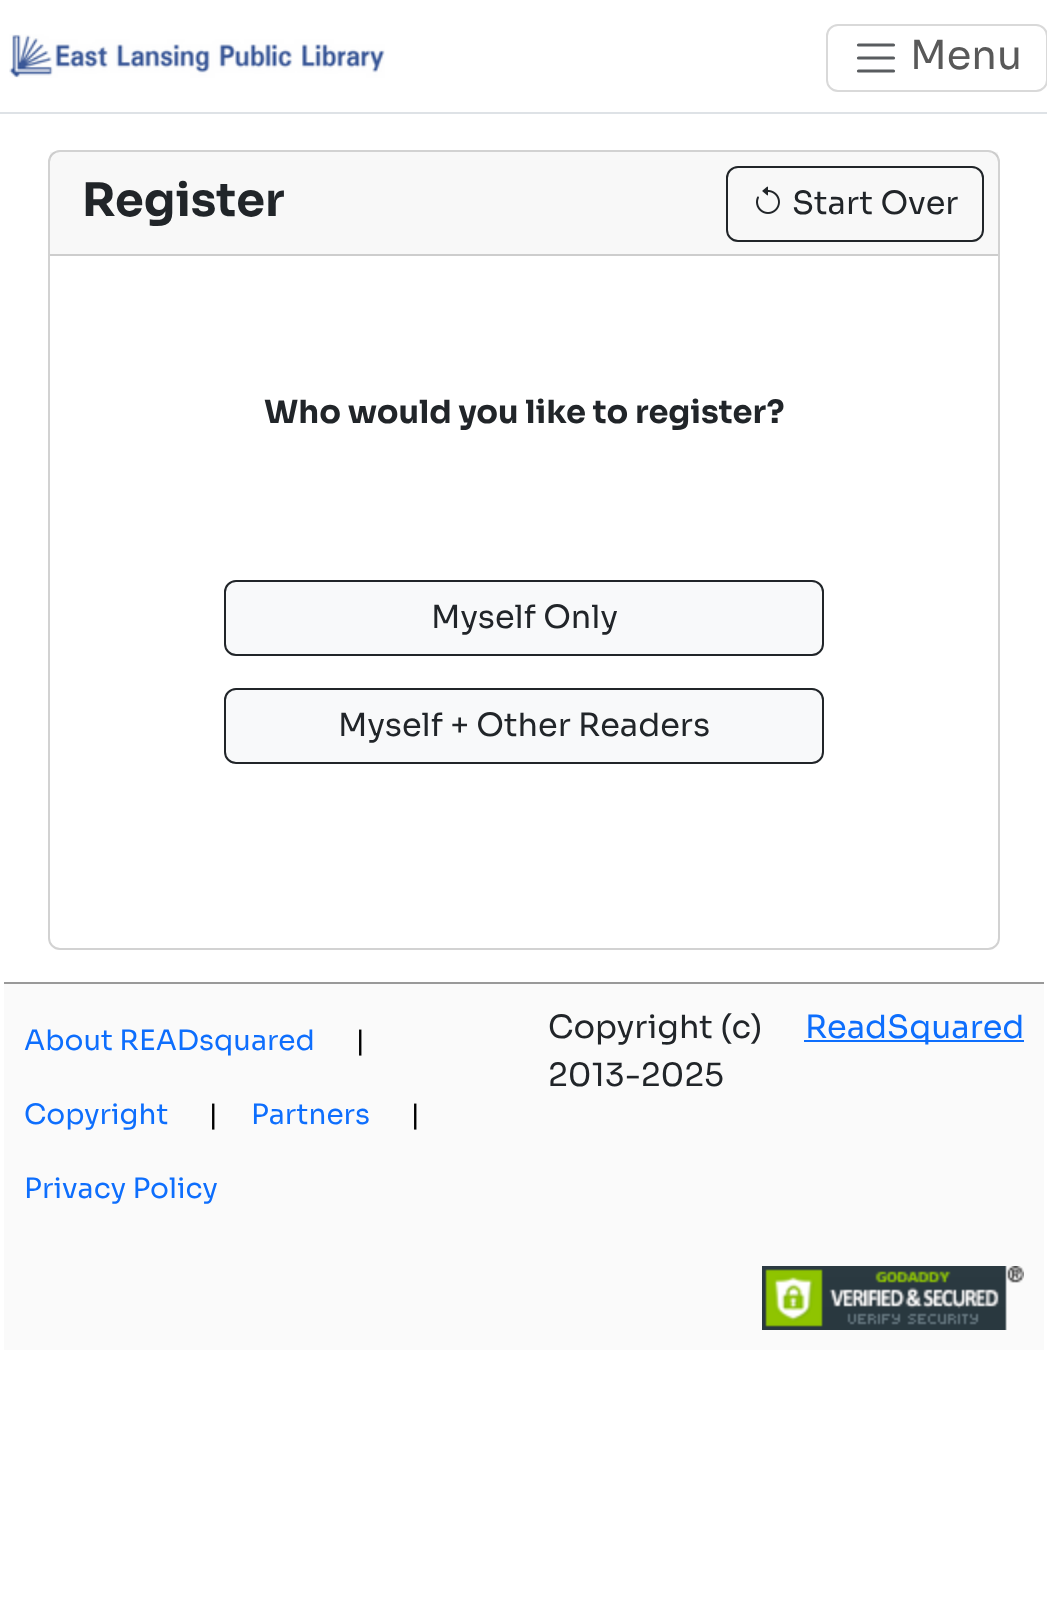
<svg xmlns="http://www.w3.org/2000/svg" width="1047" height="1614">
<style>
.a{font:40px Sora;fill:#595959}
.b{font:bold 46px Sora;fill:#212529}
.c{font:32px Sora;fill:#212529}
.d{font:bold 32px Sora;fill:#212529}
.e{font:28px Sora;fill:#0d6efd}
.f{font:28px Sora;fill:#000}
.g{font:32px Sora;fill:#0d6efd}
</style>
<rect width="100%" height="100%" fill="#fff"/>
<path fill="#dee2e6" d="M0 112h1047v2H0z"/>
<image href="1.png" x="9" y="34" width="376" height="44"/>
<rect fill="none" stroke="#d9d9d9" stroke-width="2" x="827" y="25" width="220" height="66" rx="11"/>
<path fill="none" stroke="#595c5f" stroke-width="3.2" stroke-linecap="round" d="M858.5 45h35m-35 13h35m-35 13h35"/>
<rect fill="none" stroke="#d2d2d2" stroke-width="2" x="49" y="151" width="950" height="798" rx="11"/>
<path fill="#21252908" d="M50 152h948v102H50z"/>
<path fill="#cdcdcd" d="M50 254h948v2H50z"/>
<rect fill="none" stroke="#212529" stroke-width="2" x="727" y="167" width="256" height="74" rx="11"/>
<image href="2.png" x="756" y="186" width="24" height="28"/>
<rect fill="#f8f9fa" stroke="#212529" stroke-width="2" x="225" y="581" width="598" height="74" rx="11"/>
<rect fill="#f8f9fa" stroke="#212529" stroke-width="2" x="225" y="689" width="598" height="74" rx="11"/>
<path fill="#fafafa" d="M4 984h1040v366H4z"/>
<path fill="#999" d="M4 982h1040v2H4z"/>
<path fill="#0d6efd" d="M804 1040h220v2H804z"/>
<image href="3.png" x="762" y="1266" width="262" height="64"/>
<text class="a" x="910" y="69">Menu</text>
<text class="b" x="82" y="216">Register</text>
<text class="c" x="792" y="214">Start Over</text>
<text class="d" x="264" y="423">Who would you like to register?</text>
<text class="c" x="431" y="628">Myself Only</text>
<text class="c" x="338" y="736">Myself + Other Readers</text>
<text class="e" x="24" y="1050">About READsquared</text>
<text class="f" x="355" y="1050">|</text>
<text class="e" x="24" y="1124">Copyright</text>
<text class="f" x="208" y="1124">|</text>
<text class="e" x="251" y="1124">Partners</text>
<text class="f" x="410" y="1124">|</text>
<text class="e" x="24" y="1198">Privacy Policy</text>
<text class="c" x="548" y="1038">Copyright (c)</text>
<text class="g" x="805" y="1038">ReadSquared</text>
<text class="c" x="548" y="1086">2013-2025</text>
</svg>
